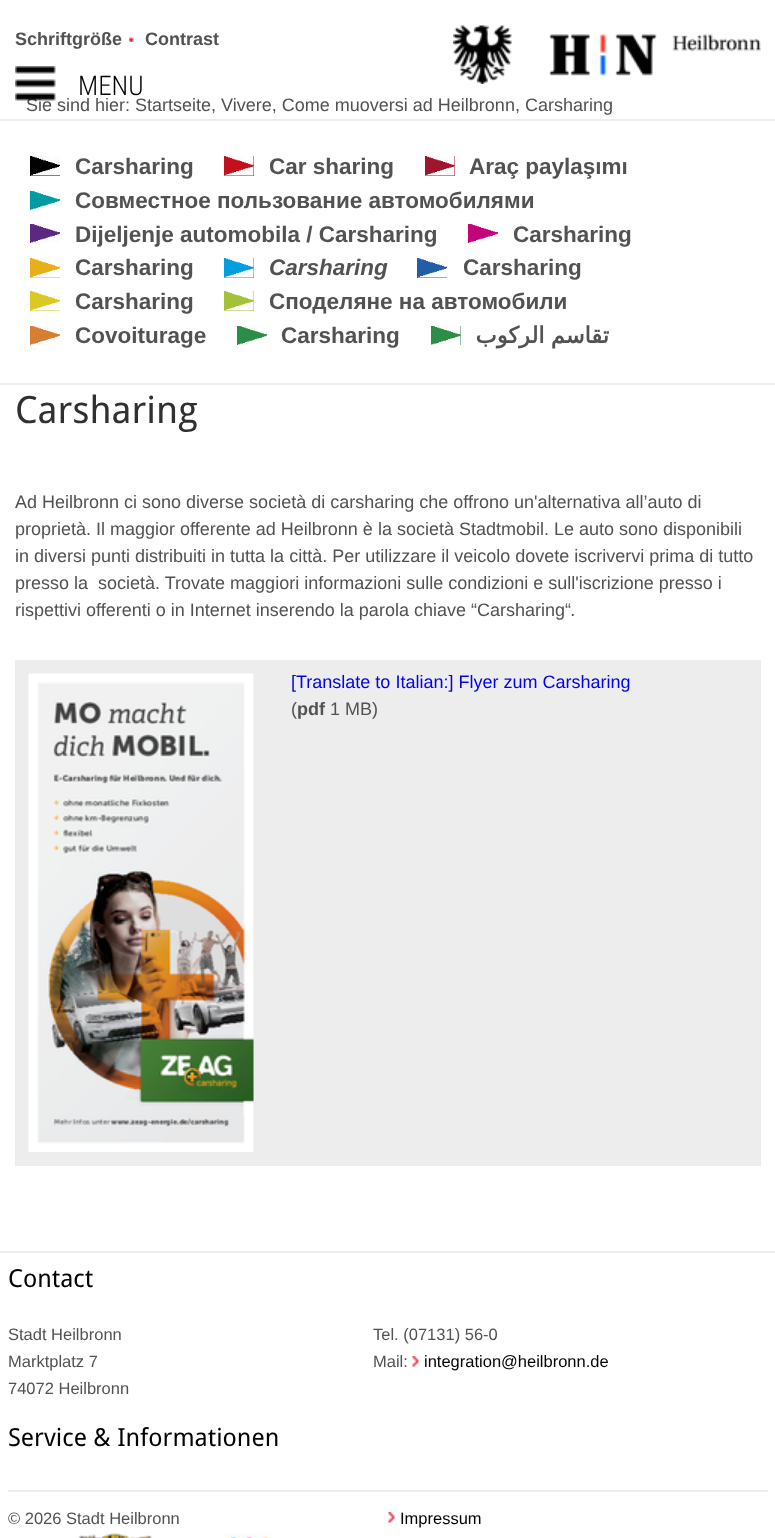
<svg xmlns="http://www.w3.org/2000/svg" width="775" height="1538">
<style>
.a{font:bold 18px Liberation Sans;fill:#525252}
.b{font:300 27px Roboto Condensed;fill:#020202}
.c{font:18px Liberation Sans;fill:#525252}
.d{font:bold 22.5px Liberation Sans;fill:#525252}
.e{font:italic bold 22.5px Liberation Sans;fill:#525252}
.f{font:bold 22.5px DejaVu Sans;direction:rtl;fill:#525252}
.g{font:37.5px Droid Sans;fill:#302f32}
.h{font:italic 18px Liberation Sans;fill:#525252}
.i{font:18px Liberation Sans;fill:#0202ee}
.j{font:24.75px Droid Sans;fill:#020202}
.k{font:16.5px Liberation Sans;fill:#525252}
.l{font:16.5px Liberation Sans;fill:#020202}
</style>
<rect width="100%" height="100%" fill="#fff"/>
<image href="1.png" x="129" y="37" width="5" height="5"/>
<image href="2.png" x="453" y="25" width="308" height="59"/>
<path fill="#ededed" d="M0 119h775v2H0z"/>
<path fill="#ededed" d="M0 383h775v2H0z"/>
<path fill="#020202" d="M30 156h30v20H30z"/>
<image href="4.png" x="31" y="156" width="29" height="20"/>
<path fill="#c3101c" d="M224 156h30v20H224z"/>
<image href="5.png" x="224" y="156" width="30" height="20"/>
<path fill="#9e152e" d="M425 156h30v20H425z"/>
<image href="6.png" x="425" y="156" width="30" height="20"/>
<path fill="#029aa3" d="M30 191h30v19H30z"/>
<image href="7.png" x="31" y="190" width="29" height="20"/>
<path fill="#5b2a80" d="M30 224h30v19H30z"/>
<image href="8.png" x="31" y="223" width="29" height="20"/>
<path fill="#c4027b" d="M468 224h30v19H468z"/>
<image href="9.png" x="469" y="223" width="29" height="20"/>
<path fill="#e7b01b" d="M30 258h30v20H30z"/>
<image href="10.png" x="31" y="258" width="29" height="20"/>
<path fill="#029ee0" d="M224 258h30v20H224z"/>
<image href="11.png" x="224" y="258" width="30" height="20"/>
<path fill="#215ea7" d="M417 258h30v20H417z"/>
<image href="12.png" x="418" y="258" width="29" height="20"/>
<path fill="#dcc824" d="M30 291h30v20H30z"/>
<image href="13.png" x="31" y="291" width="29" height="20"/>
<path fill="#a3c139" d="M224 291h30v20H224z"/>
<image href="14.png" x="224" y="291" width="30" height="20"/>
<path fill="#d67e33" d="M30 326h30v19H30z"/>
<image href="15.png" x="31" y="325" width="29" height="20"/>
<path fill="#2c8d48" d="M237 326h30v19H237z"/>
<image href="16.png" x="238" y="325" width="29" height="20"/>
<path fill="#2c8d48" d="M431 326h30v19H431z"/>
<image href="17.png" x="431" y="325" width="30" height="20"/>
<path fill="#ededed" d="M15 660h746v506H15z"/>
<image href="18.png" x="28" y="673" width="226" height="479"/>
<path fill="#ededed" d="M0 1251h775v2H0z"/>
<image href="19.png" x="412" y="1356" width="7" height="11"/>
<path fill="#ededed" d="M8 1490h760v2H8z"/>
<image href="19.png" x="388" y="1512" width="7" height="11"/>
<image href="20.png" x="78" y="1533" width="74" height="5"/>
<image href="21.png" x="223" y="1533" width="49" height="5"/>
<text class="a" x="15" y="45">Schriftgröße</text>
<text class="a" x="145" y="45">Contrast</text>
<text class="b" x="78" y="95">MENU</text>
<text class="c" x="26" y="111">Sie sind hier: Startseite, Vivere, Come muoversi ad Heilbronn, Carsharing</text>
<image href="3.png" x="15" y="66" width="41" height="35"/>
<text class="d" x="75" y="174">Carsharing</text>
<text class="d" x="269" y="174">Car sharing</text>
<text class="d" x="469" y="174">Araç paylaşımı</text>
<text class="d" x="75" y="208">Совместное пользование автомобилями</text>
<text class="d" x="75" y="242">Dijeljenje automobila / Carsharing</text>
<text class="d" x="513" y="242">Carsharing</text>
<text class="d" x="75" y="275">Carsharing</text>
<text class="e" x="269" y="275">Carsharing</text>
<text class="d" x="463" y="275">Carsharing</text>
<text class="d" x="75" y="309">Carsharing</text>
<text class="d" x="269" y="309">Споделяне на автомобили</text>
<text class="d" x="75" y="343">Covoiturage</text>
<text class="d" x="281" y="343">Carsharing</text>
<text class="f" x="609" y="343" word-spacing="-1">تقاسم الركوب</text>
<text class="g" x="15" y="423">Carsharing</text>
<text class="c" x="15" y="508">Ad Heilbronn ci sono diverse società di carsharing che offrono un'alternativa all’auto di</text>
<text class="c" x="15" y="535">proprietà. Il maggior offerente ad Heilbronn è la società Stadtmobil. Le auto sono disponibili</text>
<text class="c" x="15" y="562">in diversi punti distribuiti in tutta la città. Per utilizzare il veicolo dovete iscrivervi prima di tutto</text>
<text class="c" xml:space="preserve" x="15" y="589">presso la  società. Trovate maggiori informazioni sulle condizioni e sull'iscrizione presso i</text>
<text class="c" x="15" y="616">rispettivi offerenti o in Internet inserendo la parola chiave “Carsharing“</text>
<text class="h" x="571" y="616">.</text>
<text class="i" x="291" y="688">[Translate to Italian:] Flyer zum Carsharing</text>
<text class="c" x="291" y="715">(</text>
<text class="a" x="297" y="715">pdf</text>
<text class="c" x="330" y="715">1 MB)</text>
<text class="j" x="8" y="1287">Contact</text>
<text class="k" x="8" y="1340">Stadt Heilbronn</text>
<text class="k" x="8" y="1367">Marktplatz 7</text>
<text class="k" x="8" y="1394">74072 Heilbronn</text>
<text class="k" x="373" y="1340">Tel. (07131) 56-0</text>
<text class="k" x="373" y="1367">Mail:</text>
<text class="l" x="424" y="1367">integration@heilbronn.de</text>
<text class="j" x="8" y="1446">Service &amp; Informationen</text>
<text class="k" x="8" y="1524">© 2026 Stadt Heilbronn</text>
<text class="l" x="400" y="1524">Impressum</text>
</svg>
